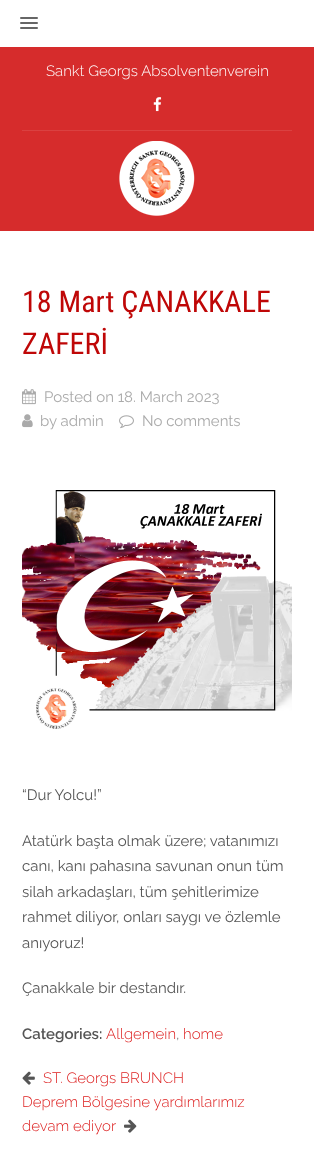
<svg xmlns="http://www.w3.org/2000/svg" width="314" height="1166">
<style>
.a{font:300 15px Raleway;fill:#fff}
.b{font:30px Roboto Condensed;fill:#bf0707}
.c{font:15px Raleway;fill:#aaa}
.d{font:15px Raleway;fill:#555}
.e{font:600 15px Raleway;fill:#555}
.f{font:300 15px Raleway;fill:#dd1f1f}
.g{font:300 15px Raleway;fill:#555}
</style>
<rect width="100%" height="100%" fill="#fff"/>
<rect fill="#666" x="20" y="17" width="18" height="2" rx="1"/>
<rect fill="#666" x="20" y="22" width="18" height="2" rx="1"/>
<rect fill="#666" x="20" y="27" width="18" height="2" rx="1"/>
<path fill="#d62c2c" d="M0 47h314v184H0z"/>
<path fill="#da4141" d="M22 130h270v1H22z"/>
<image href="1.png" x="153" y="97" width="9" height="15"/>
<image href="2.png" x="119" y="141" width="76" height="75"/>
<image href="3.png" x="22" y="389" width="14" height="16"/>
<image href="4.png" x="22" y="414" width="11" height="14"/>
<image href="5.png" x="119" y="415" width="15" height="14"/>
<image href="6.png" x="22" y="490" width="270" height="239"/>
<image href="7.png" x="22" y="1071" width="13" height="14"/>
<image href="8.png" x="124" y="1119" width="13" height="14"/>
<text class="a" x="46" y="76">Sankt Georgs Absolventenverein</text>
<text class="b" x="22" y="312">18 Mart ÇANAKKALE</text>
<text class="b" x="22" y="354">ZAFERİ</text>
<text class="c" x="44" y="402">Posted on 18. March 2023</text>
<text class="c" x="40" y="426">by admin</text>
<text class="c" x="142" y="426">No comments</text>
<text class="d" x="22" y="800">“Dur Yolcu!”</text>
<text class="d" x="22" y="846">Atatürk başta olmak üzere; vatanımızı</text>
<text class="d" x="22" y="871">canı, kanı pahasına savunan onun tüm</text>
<text class="d" x="22" y="897">silah arkadaşları, tüm şehitlerimize</text>
<text class="d" x="22" y="922">rahmet diliyor, onları saygı ve özlemle</text>
<text class="d" x="22" y="948">anıyoruz!</text>
<text class="d" x="22" y="993">Çanakkale bir destandır.</text>
<text class="e" x="22" y="1039">Categories:</text>
<text class="f" x="106" y="1039">Allgemein</text>
<text class="g" x="176" y="1039">,</text>
<text class="f" x="183" y="1039">home</text>
<text class="f" x="43" y="1083">ST. Georgs BRUNCH</text>
<text class="f" x="22" y="1107">Deprem Bölgesine yardımlarımız</text>
<text class="f" x="22" y="1131">devam ediyor</text>
</svg>
